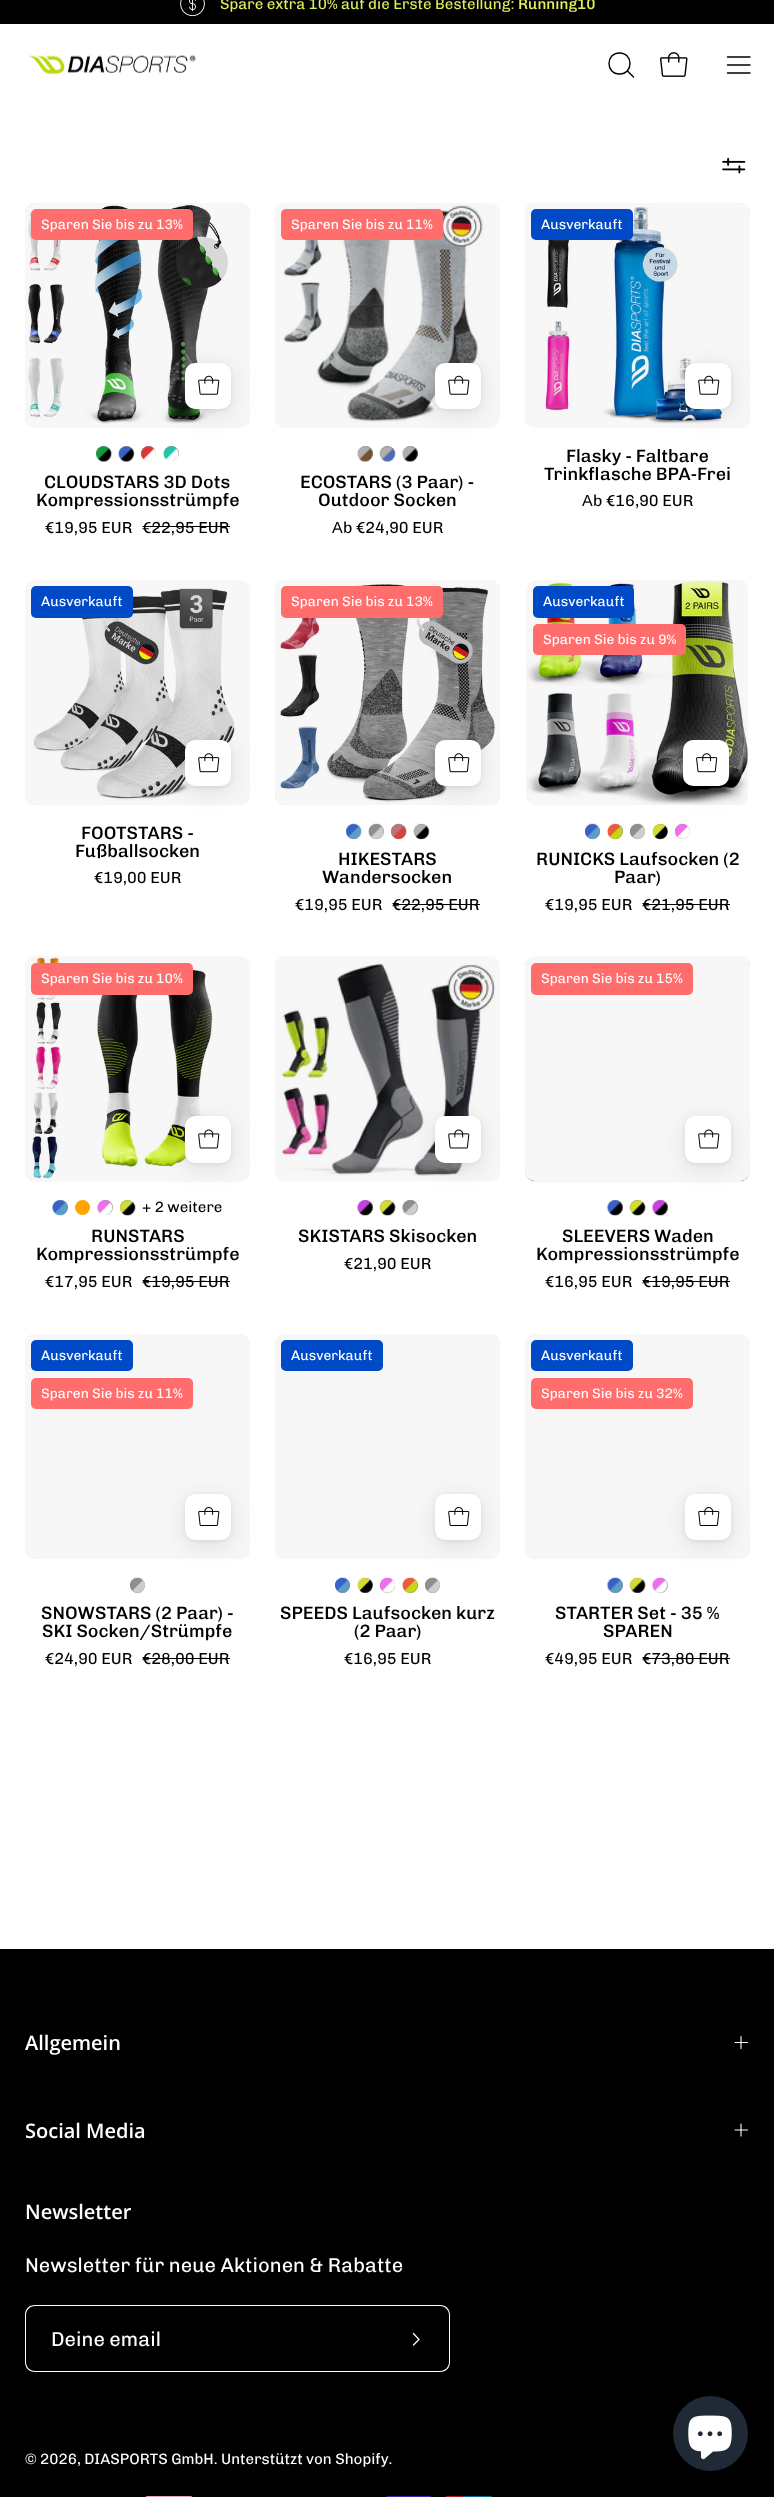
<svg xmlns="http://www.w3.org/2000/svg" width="774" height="2497">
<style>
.a{font:15px Chivo;fill:#e1ee5e}
.b{font:500 15px Chivo;fill:#e1ee5e}
.c{font:13.75px Chivo;fill:#fff}
.d{font:500 18px Chivo;fill:#000}
.e{font:16px Chivo;fill:#000}
.f{font:16px Liberation Sans;fill:#000}
.g{font:15px Chivo;fill:#000}
.h{font:600 20px Open Sans;fill:#fff}
.i{font:20px Chivo;fill:#fff}
.j{font:15px Chivo;fill:#fff}
</style>
<defs>
<clipPath id="clip1"><rect x="525" y="580" width="225" height="225" rx="10"/></clipPath>
</defs>
<rect width="100%" height="100%" fill="#fff"/>
<path fill="#000" d="M0 0h774v24H0z"/>
<image href="1.png" x="180" y="0" width="25" height="16"/>
<image href="2.png" x="29" y="54" width="168" height="21"/>
<path fill="none" stroke="#000" stroke-width="1.4" stroke-linecap="round" stroke-linejoin="round" d="M619.5 74c14 0 14-21 0-21c-14 0-14 21 0 21zm8-3l6 6"/>
<image href="3.png" x="660" y="52" width="28" height="25"/>
<path fill="none" stroke="#000" stroke-width="1.4" stroke-linecap="round" stroke-linejoin="round" d="M727.5 65h22.5m-22.5-8h22.5m-22.5 16h22.5"/>
<image href="4.png" x="722" y="158" width="24" height="16"/>
<image href="5.png" x="25" y="203" width="225" height="225"/>
<image href="7.png" x="26" y="203" width="223" height="220"/>
<rect fill="#f7f7f7" x="25" y="203" width="225" height="225" rx="10"/>
<image href="6.png" x="28" y="204" width="200" height="220"/>
<rect fill="#ff6d6d" x="31" y="209" width="162" height="31" rx="5"/>
<rect fill="#00000012" filter="blur(2px)" x="185" y="364" width="46" height="46" rx="10"/>
<rect fill="#0000001a" filter="blur(12.5px)" x="185" y="368" width="46" height="46" rx="10"/>
<rect fill="#fff" x="185" y="363" width="46" height="46" rx="10"/>
<image href="8.png" x="198" y="375" width="22" height="20"/>
<circle fill="#888" cx="103.5" cy="453.5" r="7.5"/>
<image href="9.png" x="96" y="446" width="16" height="16"/>
<circle fill="#888" cx="126.5" cy="453.5" r="7.5"/>
<image href="10.png" x="118" y="446" width="17" height="16"/>
<circle fill="#888" cx="148.5" cy="453.5" r="7.5"/>
<image href="11.png" x="141" y="446" width="15" height="15"/>
<circle fill="#888" cx="171.5" cy="453.5" r="7.5"/>
<image href="12.png" x="163" y="446" width="16" height="15"/>
<path fill="#000" d="M143 526h87v1H143z"/>
<rect fill="#f7f7f7" x="275" y="203" width="225" height="225" rx="10"/>
<image href="13.png" x="283" y="204" width="201" height="219"/>
<rect fill="#ff6d6d" x="281" y="209" width="162" height="31" rx="5"/>
<rect fill="#00000012" filter="blur(2px)" x="435" y="364" width="46" height="46" rx="10"/>
<rect fill="#0000001a" filter="blur(12.5px)" x="435" y="368" width="46" height="46" rx="10"/>
<rect fill="#fff" x="435" y="363" width="46" height="46" rx="10"/>
<image href="8.png" x="448" y="375" width="22" height="20"/>
<circle fill="#888" cx="365.5" cy="453.5" r="7.5"/>
<image href="14.png" x="357" y="446" width="16" height="16"/>
<circle fill="#888" cx="387.5" cy="453.5" r="7.5"/>
<image href="15.png" x="379" y="446" width="17" height="16"/>
<circle fill="#888" cx="410.5" cy="453.5" r="7.5"/>
<image href="16.png" x="402" y="446" width="16" height="16"/>
<image href="17.png" x="525" y="203" width="225" height="225"/>
<rect fill="#f7f7f7" x="525" y="203" width="225" height="225" rx="10"/>
<image href="18.png" x="530" y="203" width="215" height="221"/>
<rect fill="#004ac7" x="531" y="209" width="102" height="31" rx="5"/>
<rect fill="#00000012" filter="blur(2px)" x="685" y="364" width="46" height="46" rx="10"/>
<rect fill="#0000001a" filter="blur(12.5px)" x="685" y="368" width="46" height="46" rx="10"/>
<rect fill="#fff" x="685" y="363" width="46" height="46" rx="10"/>
<image href="8.png" x="698" y="375" width="22" height="20"/>
<image href="19.png" x="25" y="580" width="225" height="225"/>
<rect fill="#f7f7f7" x="25" y="580" width="225" height="225" rx="10"/>
<image href="20.png" x="28" y="588" width="219" height="215"/>
<rect fill="#004ac7" x="31" y="586" width="102" height="32" rx="5"/>
<rect fill="#00000012" filter="blur(2px)" x="185" y="741" width="46" height="47" rx="10"/>
<rect fill="#0000001a" filter="blur(12.5px)" x="185" y="745" width="46" height="46" rx="10"/>
<rect fill="#fff" x="185" y="740" width="46" height="46" rx="10"/>
<image href="21.png" x="198" y="753" width="22" height="20"/>
<image href="22.png" x="275" y="580" width="225" height="225"/>
<image href="24.png" x="276" y="585" width="223" height="220"/>
<rect fill="#f7f7f7" x="275" y="580" width="225" height="225" rx="10"/>
<image href="23.png" x="280" y="584" width="215" height="219"/>
<rect fill="#ff6d6d" x="281" y="586" width="162" height="32" rx="5"/>
<rect fill="#00000012" filter="blur(2px)" x="435" y="741" width="46" height="47" rx="10"/>
<rect fill="#0000001a" filter="blur(12.5px)" x="435" y="745" width="46" height="46" rx="10"/>
<rect fill="#fff" x="435" y="740" width="46" height="46" rx="10"/>
<image href="21.png" x="448" y="753" width="22" height="20"/>
<circle fill="#888" cx="353.5" cy="831.5" r="7.5"/>
<image href="25.png" x="346" y="823" width="16" height="17"/>
<circle fill="#888" cx="376.5" cy="831.5" r="7.5"/>
<image href="26.png" x="368" y="823" width="17" height="17"/>
<circle fill="#888" cx="398.5" cy="831.5" r="7.5"/>
<image href="27.png" x="391" y="823" width="16" height="17"/>
<circle fill="#888" cx="421.5" cy="831.5" r="7.5"/>
<image href="28.png" x="413" y="823" width="17" height="17"/>
<path fill="#000" d="M393 904h87v1H393z"/>
<image href="29.png" x="527" y="580" width="221" height="225"/>
<image href="31.png" x="527" y="580" width="221" height="225"/>
<g clip-path="url(#clip1)">
<rect fill="#f7f7f7" x="526" y="580" width="222" height="225" rx="10"/>
</g>
<image href="30.png" x="527" y="580" width="221" height="225"/>
<rect fill="#004ac7" x="533" y="586" width="101" height="32" rx="5"/>
<rect fill="#ff6d6d" x="533" y="624" width="153" height="31" rx="5"/>
<rect fill="#00000012" filter="blur(2px)" x="683" y="741" width="46" height="47" rx="10"/>
<rect fill="#0000001a" filter="blur(12.5px)" x="683" y="745" width="46" height="46" rx="10"/>
<rect fill="#fff" x="683" y="740" width="46" height="46" rx="10"/>
<image href="32.png" x="696" y="753" width="22" height="20"/>
<circle fill="#888" cx="592.5" cy="831.5" r="7.5"/>
<image href="33.png" x="585" y="823" width="15" height="17"/>
<circle fill="#888" cx="615.5" cy="831.5" r="7.5"/>
<image href="34.png" x="607" y="823" width="16" height="17"/>
<circle fill="#888" cx="637.5" cy="831.5" r="7.5"/>
<image href="35.png" x="630" y="823" width="15" height="17"/>
<circle fill="#888" cx="660.5" cy="831.5" r="7.5"/>
<image href="36.png" x="652" y="823" width="16" height="17"/>
<circle fill="#888" cx="682.5" cy="831.5" r="7.5"/>
<image href="37.png" x="675" y="823" width="15" height="16"/>
<path fill="#000" d="M643 904h87v1H643z"/>
<image href="38.png" x="25" y="956" width="225" height="226"/>
<image href="40.png" x="26" y="957" width="223" height="224"/>
<rect fill="#f7f7f7" x="25" y="956" width="225" height="225" rx="10"/>
<image href="39.png" x="30" y="957" width="185" height="222"/>
<rect fill="#ff6d6d" x="31" y="963" width="162" height="32" rx="5"/>
<rect fill="#00000012" filter="blur(2px)" x="185" y="1118" width="46" height="46" rx="10"/>
<rect fill="#0000001a" filter="blur(12.5px)" x="185" y="1121" width="46" height="47" rx="10"/>
<rect fill="#fff" x="185" y="1116" width="46" height="47" rx="10"/>
<image href="41.png" x="198" y="1129" width="22" height="20"/>
<circle fill="#888" cx="60.5" cy="1207.5" r="7.5"/>
<image href="42.png" x="52" y="1200" width="17" height="16"/>
<circle fill="#ffa500" cx="82.5" cy="1207.5" r="7.5"/>
<circle fill="#888" cx="105.5" cy="1207.5" r="7.5"/>
<image href="43.png" x="97" y="1200" width="16" height="15"/>
<circle fill="#888" cx="127.5" cy="1207.5" r="7.5"/>
<image href="44.png" x="119" y="1200" width="17" height="16"/>
<path fill="#000" d="M143 1281h87v1H143z"/>
<image href="46.png" x="278" y="1178" width="219" height="3"/>
<rect fill="#f7f7f7" x="275" y="956" width="225" height="225" rx="10"/>
<image href="45.png" x="280" y="963" width="215" height="213"/>
<rect fill="#00000012" filter="blur(2px)" x="435" y="1118" width="46" height="46" rx="10"/>
<rect fill="#0000001a" filter="blur(12.5px)" x="435" y="1121" width="46" height="47" rx="10"/>
<rect fill="#fff" x="435" y="1116" width="46" height="47" rx="10"/>
<image href="41.png" x="448" y="1129" width="22" height="20"/>
<circle fill="#888" cx="365.5" cy="1207.5" r="7.5"/>
<image href="47.png" x="357" y="1200" width="16" height="16"/>
<circle fill="#888" cx="387.5" cy="1207.5" r="7.5"/>
<image href="48.png" x="379" y="1200" width="17" height="16"/>
<circle fill="#888" cx="410.5" cy="1207.5" r="7.5"/>
<image href="49.png" x="402" y="1200" width="16" height="16"/>
<image href="50.png" x="525" y="956" width="225" height="226"/>
<rect fill="#f7f7f7" x="525" y="956" width="225" height="225" rx="10"/>
<rect fill="#ff6d6d" x="531" y="963" width="162" height="32" rx="5"/>
<rect fill="#00000012" filter="blur(2px)" x="685" y="1118" width="46" height="46" rx="10"/>
<rect fill="#0000001a" filter="blur(12.5px)" x="685" y="1121" width="46" height="47" rx="10"/>
<rect fill="#fff" x="685" y="1116" width="46" height="47" rx="10"/>
<image href="41.png" x="698" y="1129" width="22" height="20"/>
<circle fill="#888" cx="615.5" cy="1207.5" r="7.5"/>
<image href="51.png" x="607" y="1200" width="16" height="16"/>
<circle fill="#888" cx="637.5" cy="1207.5" r="7.5"/>
<image href="48.png" x="629" y="1200" width="17" height="16"/>
<circle fill="#888" cx="660.5" cy="1207.5" r="7.5"/>
<image href="52.png" x="652" y="1200" width="16" height="16"/>
<path fill="#000" d="M643 1281h87v1H643z"/>
<image href="53.png" x="25" y="1334" width="225" height="225"/>
<rect fill="#f7f7f7" x="25" y="1334" width="225" height="225" rx="10"/>
<rect fill="#004ac7" x="31" y="1340" width="102" height="31" rx="5"/>
<rect fill="#ff6d6d" x="31" y="1378" width="162" height="31" rx="5"/>
<rect fill="#00000012" filter="blur(2px)" x="185" y="1495" width="46" height="46" rx="10"/>
<rect fill="#0000001a" filter="blur(12.5px)" x="185" y="1499" width="46" height="46" rx="10"/>
<rect fill="#fff" x="185" y="1494" width="46" height="46" rx="10"/>
<image href="54.png" x="198" y="1507" width="22" height="19"/>
<circle fill="#888" cx="137.5" cy="1585.5" r="7.5"/>
<image href="55.png" x="130" y="1577" width="15" height="16"/>
<path fill="#000" d="M143 1658h87v1H143z"/>
<image href="56.png" x="275" y="1334" width="225" height="225"/>
<rect fill="#f7f7f7" x="275" y="1334" width="225" height="225" rx="10"/>
<rect fill="#004ac7" x="281" y="1340" width="102" height="31" rx="5"/>
<rect fill="#00000012" filter="blur(2px)" x="435" y="1495" width="46" height="46" rx="10"/>
<rect fill="#0000001a" filter="blur(12.5px)" x="435" y="1499" width="46" height="46" rx="10"/>
<rect fill="#fff" x="435" y="1494" width="46" height="46" rx="10"/>
<image href="54.png" x="448" y="1507" width="22" height="19"/>
<circle fill="#888" cx="342.5" cy="1585.5" r="7.5"/>
<image href="57.png" x="335" y="1577" width="15" height="16"/>
<circle fill="#888" cx="365.5" cy="1585.5" r="7.5"/>
<image href="58.png" x="357" y="1577" width="16" height="16"/>
<circle fill="#888" cx="387.5" cy="1585.5" r="7.5"/>
<image href="59.png" x="380" y="1577" width="15" height="16"/>
<circle fill="#888" cx="410.5" cy="1585.5" r="7.5"/>
<image href="60.png" x="402" y="1577" width="16" height="16"/>
<circle fill="#888" cx="432.5" cy="1585.5" r="7.5"/>
<image href="55.png" x="425" y="1577" width="15" height="16"/>
<image href="61.png" x="525" y="1334" width="225" height="225"/>
<rect fill="#f7f7f7" x="525" y="1334" width="225" height="225" rx="10"/>
<rect fill="#004ac7" x="531" y="1340" width="102" height="31" rx="5"/>
<rect fill="#ff6d6d" x="531" y="1378" width="162" height="31" rx="5"/>
<rect fill="#00000012" filter="blur(2px)" x="685" y="1495" width="46" height="46" rx="10"/>
<rect fill="#0000001a" filter="blur(12.5px)" x="685" y="1499" width="46" height="46" rx="10"/>
<rect fill="#fff" x="685" y="1494" width="46" height="46" rx="10"/>
<image href="54.png" x="698" y="1507" width="22" height="19"/>
<circle fill="#888" cx="615.5" cy="1585.5" r="7.5"/>
<image href="62.png" x="607" y="1577" width="16" height="16"/>
<circle fill="#888" cx="637.5" cy="1585.5" r="7.5"/>
<image href="63.png" x="629" y="1577" width="17" height="16"/>
<circle fill="#888" cx="660.5" cy="1585.5" r="7.5"/>
<image href="64.png" x="652" y="1577" width="16" height="16"/>
<path fill="#000" d="M643 1658h87v1H643z"/>
<path fill="#000" d="M0 1949h774v548H0z"/>
<path fill="none" stroke="#fff" stroke-width="1.1" stroke-linecap="round" stroke-linejoin="round" d="M735 2042.5h12.5m-6.5-6v12"/>
<path fill="none" stroke="#fff" stroke-width="1.1" stroke-linecap="round" stroke-linejoin="round" d="M735 2130h12.5m-6.5-6v12"/>
<path fill="#fff" fill-rule="evenodd" d="M35 2305h347v67h-347c-6 0-10-4-10-10v-47c0-6 4-10 10-10zm0 1h347v65h-347c-5 0-9-4-9-9v-47c0-5 4-9 9-9z"/>
<path fill="#fff" fill-rule="evenodd" d="M382 2305h58c6 0 10 4 10 10v47c0 6-4 10-10 10h-58zm0 1h58c5 0 9 4 9 9v47c0 5-4 9-9 9h-58z"/>
<path fill="none" stroke="#fff" stroke-width="1.2" stroke-linecap="round" stroke-linejoin="round" d="M413.5 2333.5l5.5 6l-5.5 5.5"/>
<image href="65.png" x="145" y="2496" width="48" height="1"/>
<image href="66.png" x="386" y="2496" width="46" height="1"/>
<image href="67.png" x="445" y="2496" width="47" height="1"/>
<circle fill="#202a36" cx="710.5" cy="2433.5" r="37.5"/>
<image href="68.png" x="688" y="2415" width="44" height="45"/>
<text class="a" x="220" y="9">Spare extra 10% auf die Erste Bestellung:</text>
<text class="b" x="518" y="9">Running10</text>
<text class="c" x="41" y="229">Sparen Sie bis zu 13%</text>
<text class="d" x="44" y="488">CLOUDSTARS 3D Dots</text>
<text class="d" x="36" y="506">Kompressionsstrümpfe</text>
<text class="e" x="45" y="533">€19,95 EUR</text>
<text class="e" x="142" y="533">€22,95 EUR</text>
<text class="c" x="291" y="229">Sparen Sie bis zu 11%</text>
<text class="d" x="300" y="488">ECOSTARS (3 Paar) -</text>
<text class="d" x="318" y="506">Outdoor Socken</text>
<text class="f" x="332" y="533">А</text>
<text class="e" x="343" y="533">b €24,90 EUR</text>
<text class="c" x="541" y="229">Ausverkauft</text>
<text class="d" x="566" y="462">Flasky - Faltbare</text>
<text class="d" x="544" y="480">Trinkflasche BPA-Frei</text>
<text class="f" x="582" y="506">А</text>
<text class="e" x="593" y="506">b €16,90 EUR</text>
<text class="c" x="41" y="606">Ausverkauft</text>
<text class="d" x="81" y="839">FOOTSTARS -</text>
<text class="d" x="75" y="857">Fußballsocken</text>
<text class="e" x="94" y="883">€19,00 EUR</text>
<text class="c" x="291" y="606">Sparen Sie bis zu 13%</text>
<text class="d" x="338" y="865">HIKESTARS</text>
<text class="d" x="322" y="883">Wandersocken</text>
<text class="e" x="295" y="910">€19,95 EUR</text>
<text class="e" x="392" y="910">€22,95 EUR</text>
<text class="c" x="543" y="606">Ausverkauft</text>
<text class="c" x="543" y="644">Sparen Sie bis zu 9%</text>
<text class="d" x="536" y="865">RUNICKS Laufsocken (2</text>
<text class="d" x="614" y="883">Paar)</text>
<text class="e" x="545" y="910">€19,95 EUR</text>
<text class="e" x="642" y="910">€21,95 EUR</text>
<text class="c" x="41" y="983">Sparen Sie bis zu 10%</text>
<text class="g" x="142" y="1212">+ 2 weitere</text>
<text class="d" x="91" y="1242">RUNSTARS</text>
<text class="d" x="36" y="1260">Kompressionsstrümpfe</text>
<text class="e" x="45" y="1287">€17,95 EUR</text>
<text class="e" x="142" y="1287">€19,95 EUR</text>
<text class="d" x="298" y="1242">SKISTARS Skisocken</text>
<text class="e" x="344" y="1269">€21,90 EUR</text>
<text class="c" x="541" y="983">Sparen Sie bis zu 15%</text>
<text class="d" x="562" y="1242">SLEEVERS Waden</text>
<text class="d" x="536" y="1260">Kompressionsstrümpfe</text>
<text class="e" x="545" y="1287">€16,95 EUR</text>
<text class="e" x="642" y="1287">€19,95 EUR</text>
<text class="c" x="41" y="1360">Ausverkauft</text>
<text class="c" x="41" y="1398">Sparen Sie bis zu 11%</text>
<text class="d" x="41" y="1619">SNOWSTARS (2 Paar) -</text>
<text class="d" x="42" y="1637">SKI Socken/Strümpfe</text>
<text class="e" x="45" y="1664">€24,90 EUR</text>
<text class="e" x="142" y="1664">€28,00 EUR</text>
<text class="c" x="291" y="1360">Ausverkauft</text>
<text class="d" x="280" y="1619">SPEEDS Laufsocken kurz</text>
<text class="d" x="354" y="1637">(2 Paar)</text>
<text class="e" x="344" y="1664">€16,95 EUR</text>
<text class="c" x="541" y="1360">Ausverkauft</text>
<text class="c" x="541" y="1398">Sparen Sie bis zu 32%</text>
<text class="d" x="555" y="1619">STARTER Set - 35 %</text>
<text class="d" x="603" y="1637">SPAREN</text>
<text class="e" x="545" y="1664">€49,95 EUR</text>
<text class="e" x="642" y="1664">€73,80 EUR</text>
<text class="h" x="25" y="2050">Allgemein</text>
<text class="h" x="25" y="2138">Social Media</text>
<text class="h" x="25" y="2219">Newsletter</text>
<text class="i" x="25" y="2272">Newsletter für neue Aktionen &amp; Rabatte</text>
<text class="i" x="51" y="2346">Deine email</text>
<text class="j" x="25" y="2464">© 2026, DIASPORTS GmbH. Unterstützt von Shopify.</text>
</svg>
